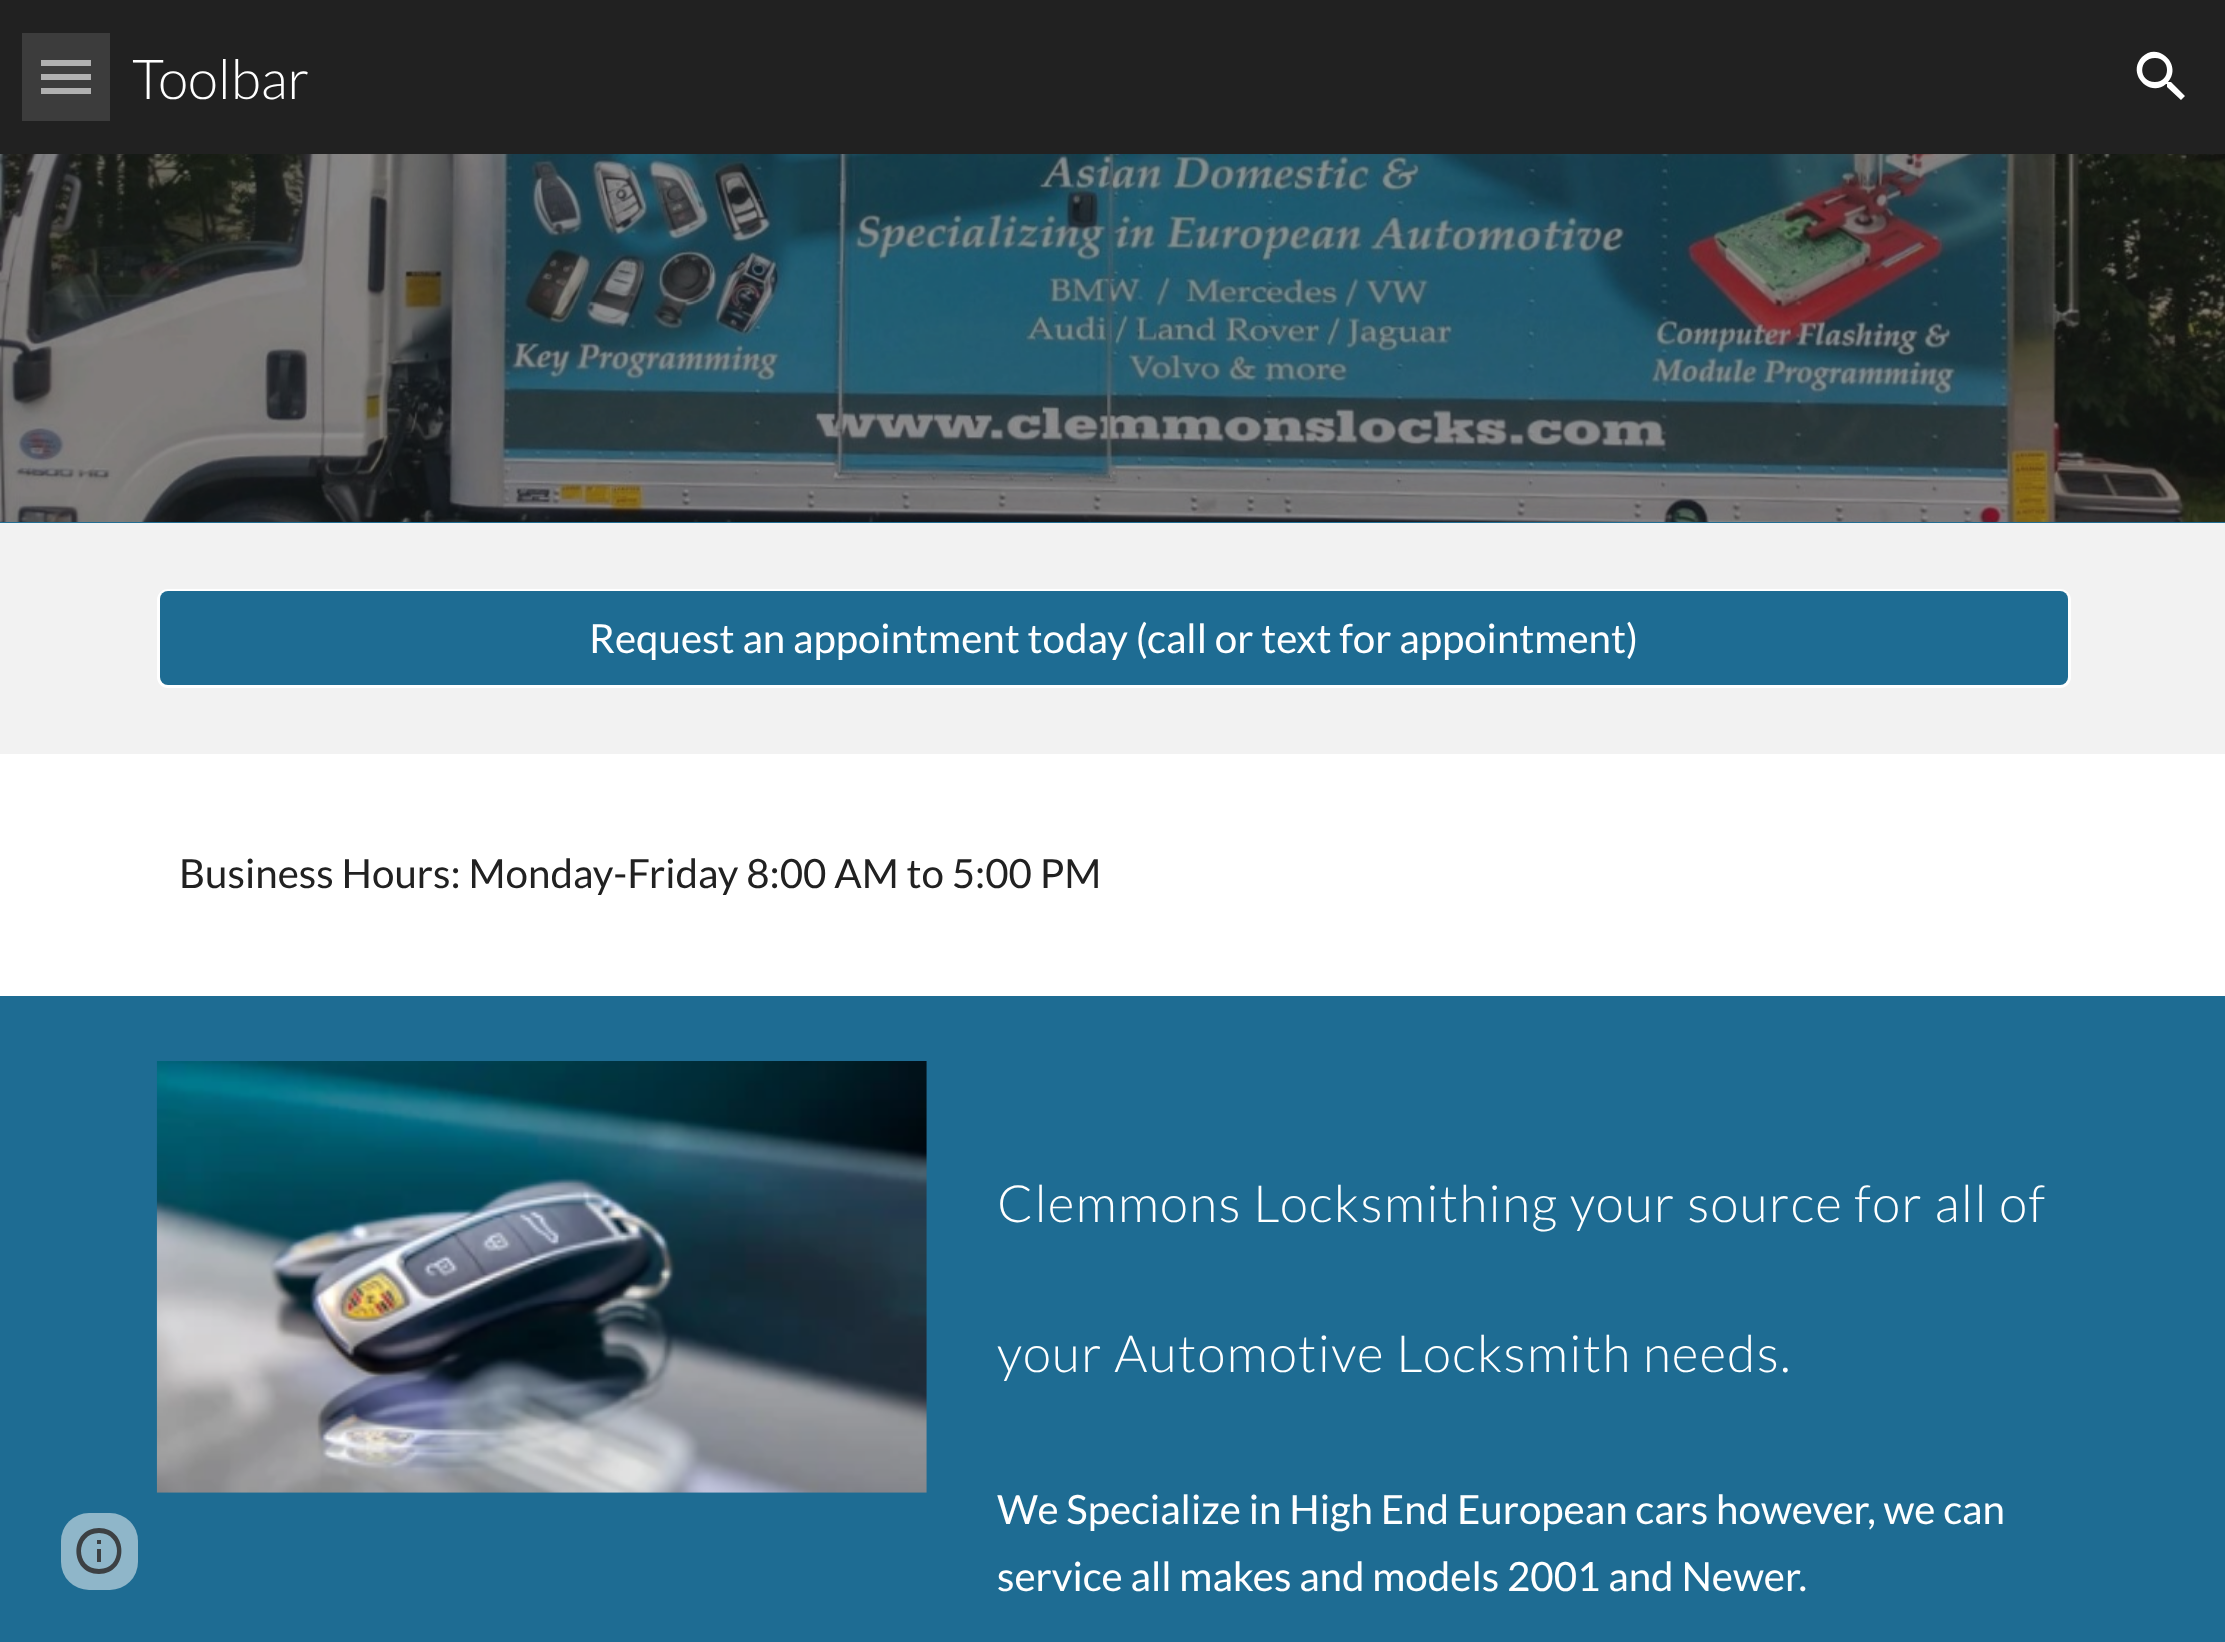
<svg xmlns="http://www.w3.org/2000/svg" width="2225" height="1642">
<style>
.a{font:300 55px Lato;fill:#fff}
.b{font:40.3px Lato;fill:#fff}
.c{font:40.3px Lato;fill:#212121}
.d{font:300 51.3px Lato;letter-spacing:1.4px;fill:#fff}
</style>
<rect width="100%" height="100%" fill="#fff"/>
<path fill="#212121" d="M0 0h2225v154H0z"/>
<path fill="#a6a6a6" d="M41 60h50v6H41z"/>
<path fill="#a6a6a6" d="M41 74h50v6H41z"/>
<path fill="#a6a6a6" d="M41 88h50v6H41z"/>
<path fill="#ffffff1f" d="M22 33h88v88H22z"/>
<path fill="#fff" d="M2171 82h-2h-1c15-17-10-41-26-25c-16 17 8 41 24 27h1v3l14 13l4-4zm-16 0c-17 0-17-24 0-24c16 0 16 24 0 24z"/>
<path fill="#1e6c93" d="M0 996h2225v646H0z"/>
<rect fill="#8fb6c9" x="61" y="1513" width="77" height="77" rx="28"/>
<path fill="#3c4043" d="M97 1562h4v-13h-4zm2-34c-30 0-30 46 0 46c30 0 30-46 0-46zm0 41c-24 0-24-36 0-36c24 0 24 36 0 36zm-2-25h4v-4h-4z"/>
<path fill="#226e93" d="M0 522h2225v1H0z"/>
<image href="1.png" x="0" y="154" width="2225" height="368"/>
<path fill="#f2f2f2" d="M0 523h2225v231H0z"/>
<rect fill="none" stroke="#fff" stroke-width="3" x="158.5" y="590.5" width="1911" height="96" rx="9.5"/>
<rect fill="#1e6c93" x="160" y="591" width="1908" height="94" rx="8"/>
<image href="2.png" x="156" y="1061" width="771" height="432"/>
<text class="a" x="132" y="99">Toolbar</text>
<text class="b" x="589" y="653">Request an appointment today (call or text for appointment)</text>
<text class="c" x="179" y="888">Business Hours: Monday-Friday 8:00 AM to 5:00 PM</text>
<text class="d" x="997" y="1222">Clemmons Locksmithing your source for all of</text>
<text class="d" x="997" y="1372">your Automotive Locksmith needs.</text>
<text class="b" x="997" y="1524">We Specialize in High End European cars however, we can</text>
<text class="b" x="997" y="1591">service all makes and models 2001 and Newer.</text>
</svg>
